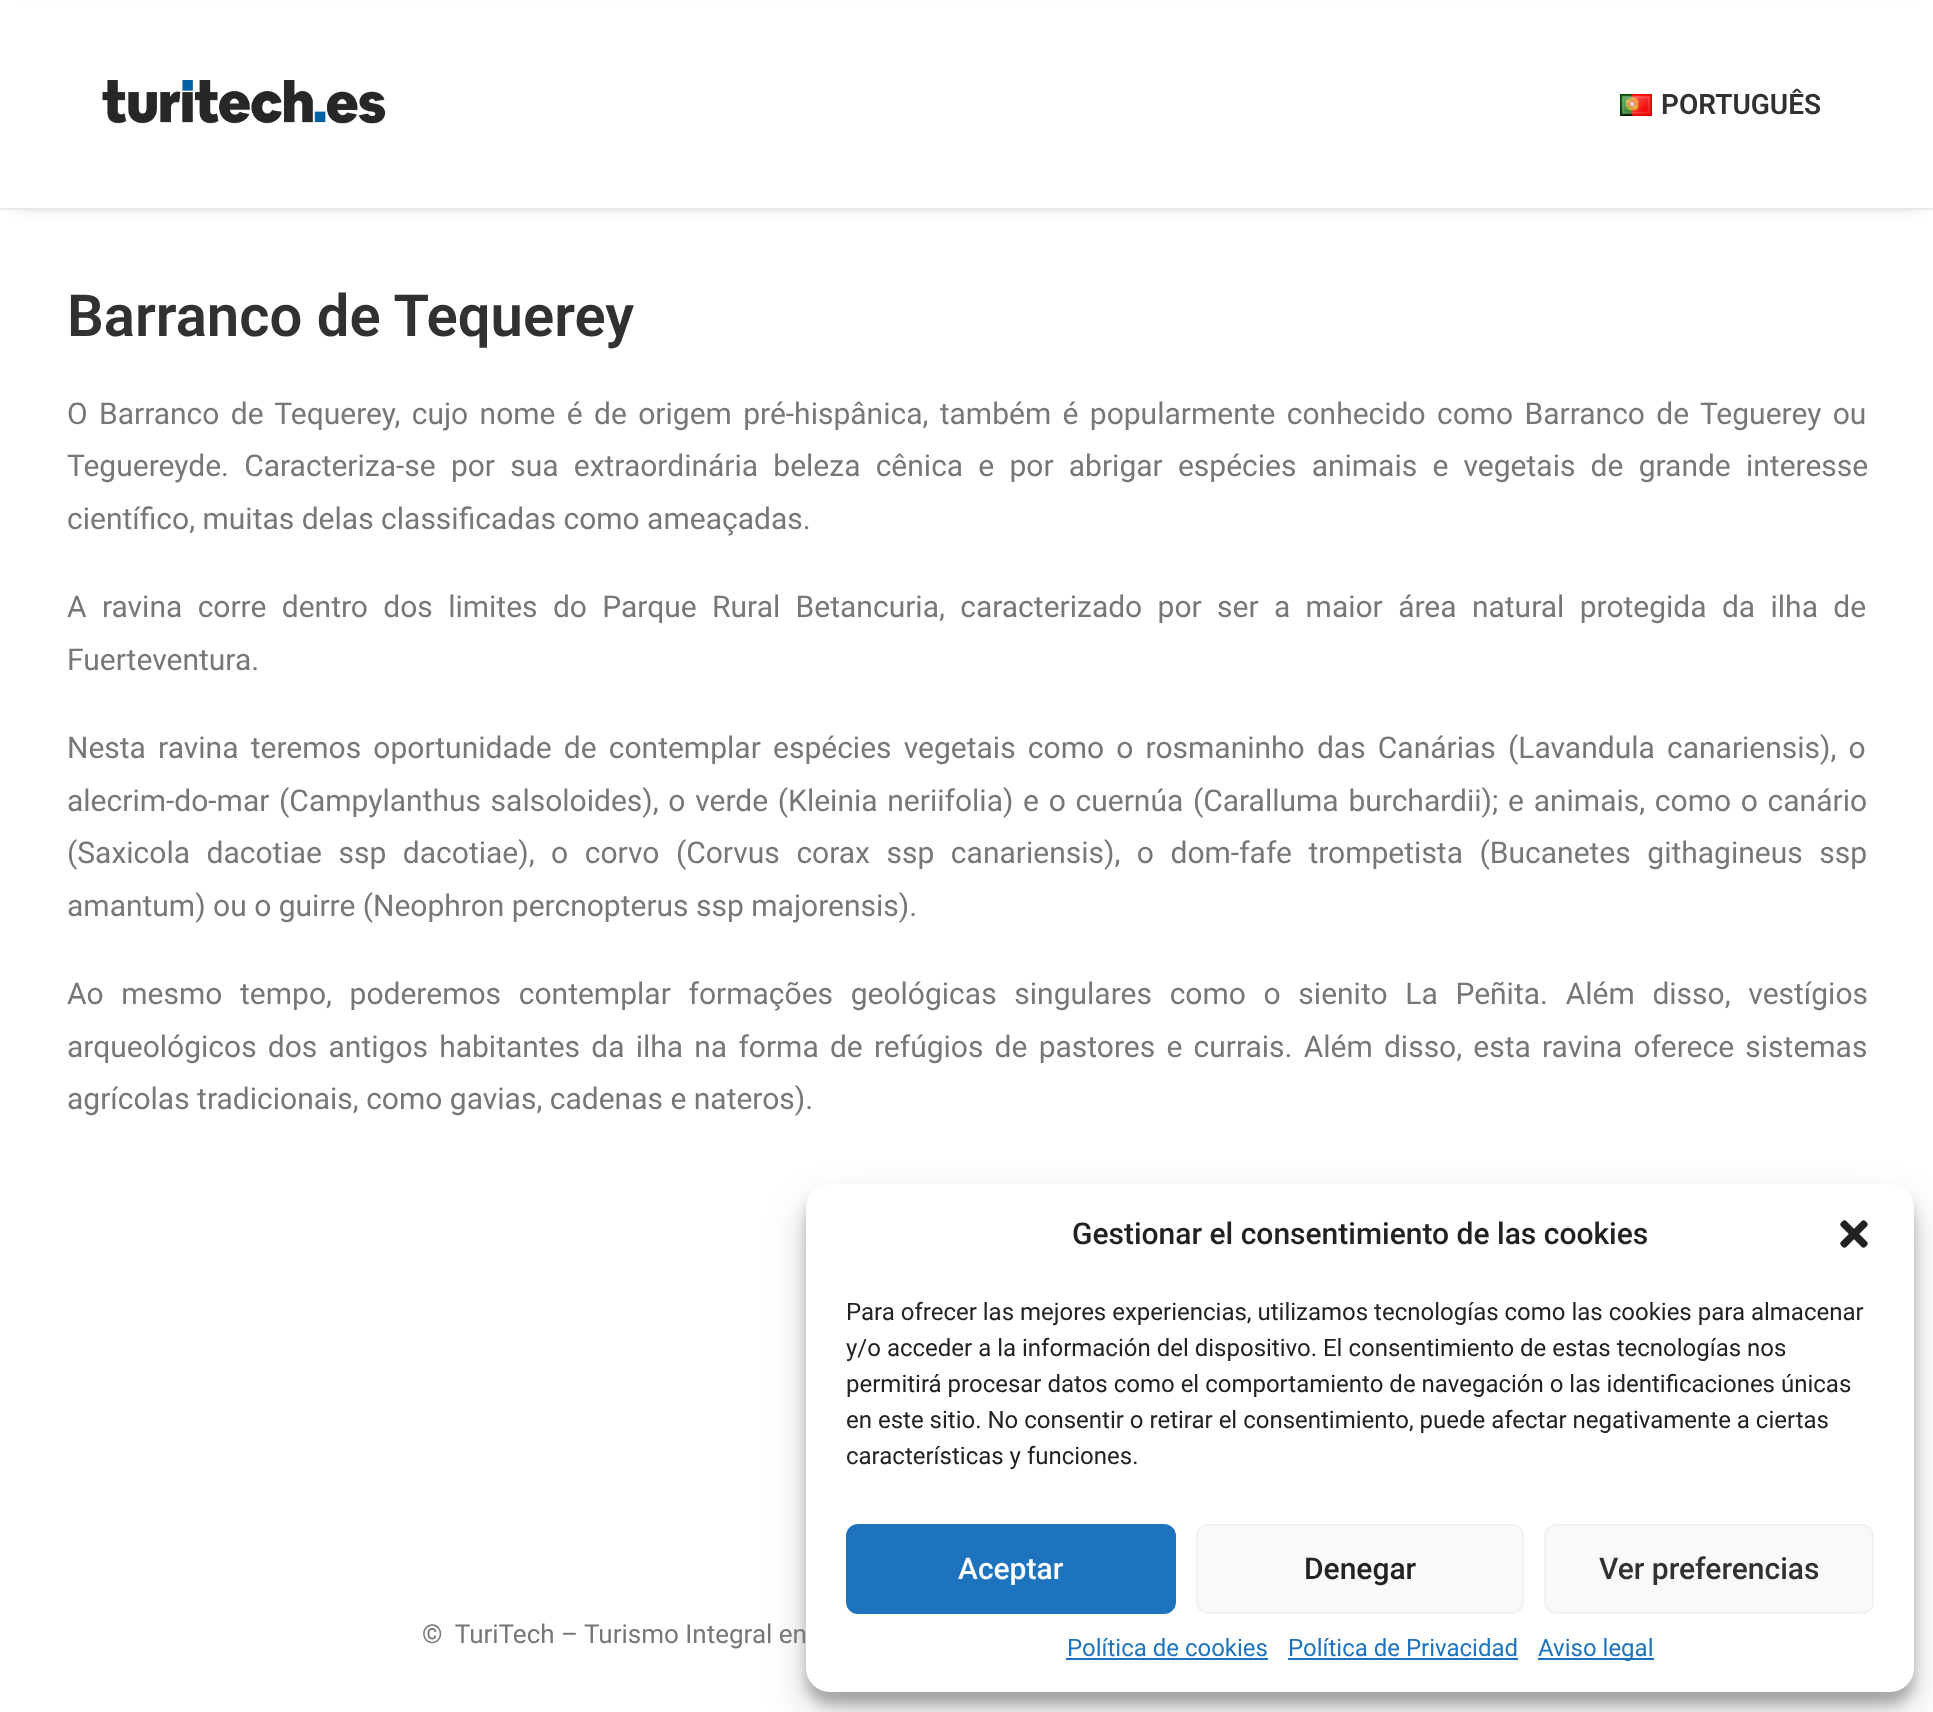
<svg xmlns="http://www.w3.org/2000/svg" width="1933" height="1712">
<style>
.a{font:600 28px Roboto;fill:#303133}
.b{font:600 58px Roboto;fill:#303133}
.c{font:30px Roboto;fill:#777}
.d{font:26px Roboto;fill:#777}
.e{font:500 30px Roboto;fill:#222}
.f{font:24px Roboto;fill:#222}
.g{font:500 30px Roboto;fill:#fff}
.h{font:500 30px Roboto;fill:#303133}
.i{font:24px Roboto;fill:#1e73be}
</style>
<rect width="100%" height="100%" fill="#fff"/>
<path fill="#00000099" filter="blur(10px)" d="M16 28h1904v170H16z"/>
<path fill="#fff" d="M0 7h1933v201H0z"/>
<path fill="#eaeaea" d="M0 208h1933v2H0z"/>
<image href="1.png" x="102" y="80" width="284" height="44"/>
<image href="2.png" x="1620" y="94" width="32" height="22"/>
<rect fill="#0000003b" filter="blur(6px)" x="806" y="1196" width="1108" height="508" rx="24"/>
<rect fill="#00000030" filter="blur(20px)" x="806" y="1204" width="1108" height="508" rx="24"/>
<rect fill="#fff" x="806" y="1184" width="1108" height="508" rx="24"/>
<image href="3.png" x="1840" y="1220" width="28" height="28"/>
<rect fill="#1e73be" stroke="#1e73be" stroke-width="2" x="847" y="1525" width="328" height="88" rx="11"/>
<rect fill="#f9f9f9" stroke="#f2f2f2" stroke-width="2" x="1197" y="1525" width="326" height="88" rx="11"/>
<rect fill="#f9f9f9" stroke="#f2f2f2" stroke-width="2" x="1545" y="1525" width="328" height="88" rx="11"/>
<path fill="#1e73be" d="M1066 1658h202v2H1066z"/>
<path fill="#1e73be" d="M1288 1658h230v2H1288z"/>
<path fill="#1e73be" d="M1538 1658h116v2H1538z"/>
<text class="a" x="1661" y="114">PORTUGUÊS</text>
<text class="b" x="67" y="336">Barranco de Tequerey</text>
<text class="c" x="67" y="424" word-spacing="3.9">O Barranco de Tequerey, cujo nome é de origem pré-hispânica, também é popularmente conhecido como Barranco de Teguerey ou</text>
<text class="c" x="67" y="476" word-spacing="7.75">Teguereyde. Caracteriza-se por sua extraordinária beleza cênica e por abrigar espécies animais e vegetais de grande interesse</text>
<text class="c" x="67" y="529">científico, muitas delas classificadas como ameaçadas.</text>
<text class="c" x="67" y="617" word-spacing="7.9">A ravina corre dentro dos limites do Parque Rural Betancuria, caracterizado por ser a maior área natural protegida da ilha de</text>
<text class="c" x="67" y="670">Fuerteventura.</text>
<text class="c" x="67" y="758" word-spacing="4.75">Nesta ravina teremos oportunidade de contemplar espécies vegetais como o rosmaninho das Canárias (Lavandula canariensis), o</text>
<text class="c" x="67" y="811" word-spacing="2.25">alecrim-do-mar (Campylanthus salsoloides), o verde (Kleinia neriifolia) e o cuernúa (Caralluma burchardii); e animais, como o canário</text>
<text class="c" x="67" y="863" word-spacing="9.1">(Saxicola dacotiae ssp dacotiae), o corvo (Corvus corax ssp canariensis), o dom-fafe trompetista (Bucanetes githagineus ssp</text>
<text class="c" x="67" y="916">amantum) ou o guirre (Neophron percnopterus ssp majorensis).</text>
<text class="c" x="67" y="1004" word-spacing="10.25">Ao mesmo tempo, poderemos contemplar formações geológicas singulares como o sienito La Peñita. Além disso, vestígios</text>
<text class="c" x="67" y="1057" word-spacing="3.75">arqueológicos dos antigos habitantes da ilha na forma de refúgios de pastores e currais. Além disso, esta ravina oferece sistemas</text>
<text class="c" x="67" y="1109">agrícolas tradicionais, como gavias, cadenas e nateros).</text>
<text class="d" xml:space="preserve" x="422" y="1643">©  TuriTech – Turismo Integral en</text>
<text class="e" x="1072" y="1244">Gestionar el consentimiento de las cookies</text>
<text class="f" x="846" y="1320">Para ofrecer las mejores experiencias, utilizamos tecnologías como las cookies para almacenar</text>
<text class="f" x="846" y="1356">y/o acceder a la información del dispositivo. El consentimiento de estas tecnologías nos</text>
<text class="f" x="846" y="1392">permitirá procesar datos como el comportamiento de navegación o las identificaciones únicas</text>
<text class="f" x="846" y="1428">en este sitio. No consentir o retirar el consentimiento, puede afectar negativamente a ciertas</text>
<text class="f" x="846" y="1464">características y funciones.</text>
<text class="g" x="958" y="1579">Aceptar</text>
<text class="e" x="1304" y="1579">Denegar</text>
<text class="h" x="1599" y="1579">Ver preferencias</text>
<text class="i" x="1067" y="1656">Política de cookies</text>
<text class="i" x="1288" y="1656">Política de Privacidad</text>
<text class="i" x="1538" y="1656">Aviso legal</text>
</svg>
